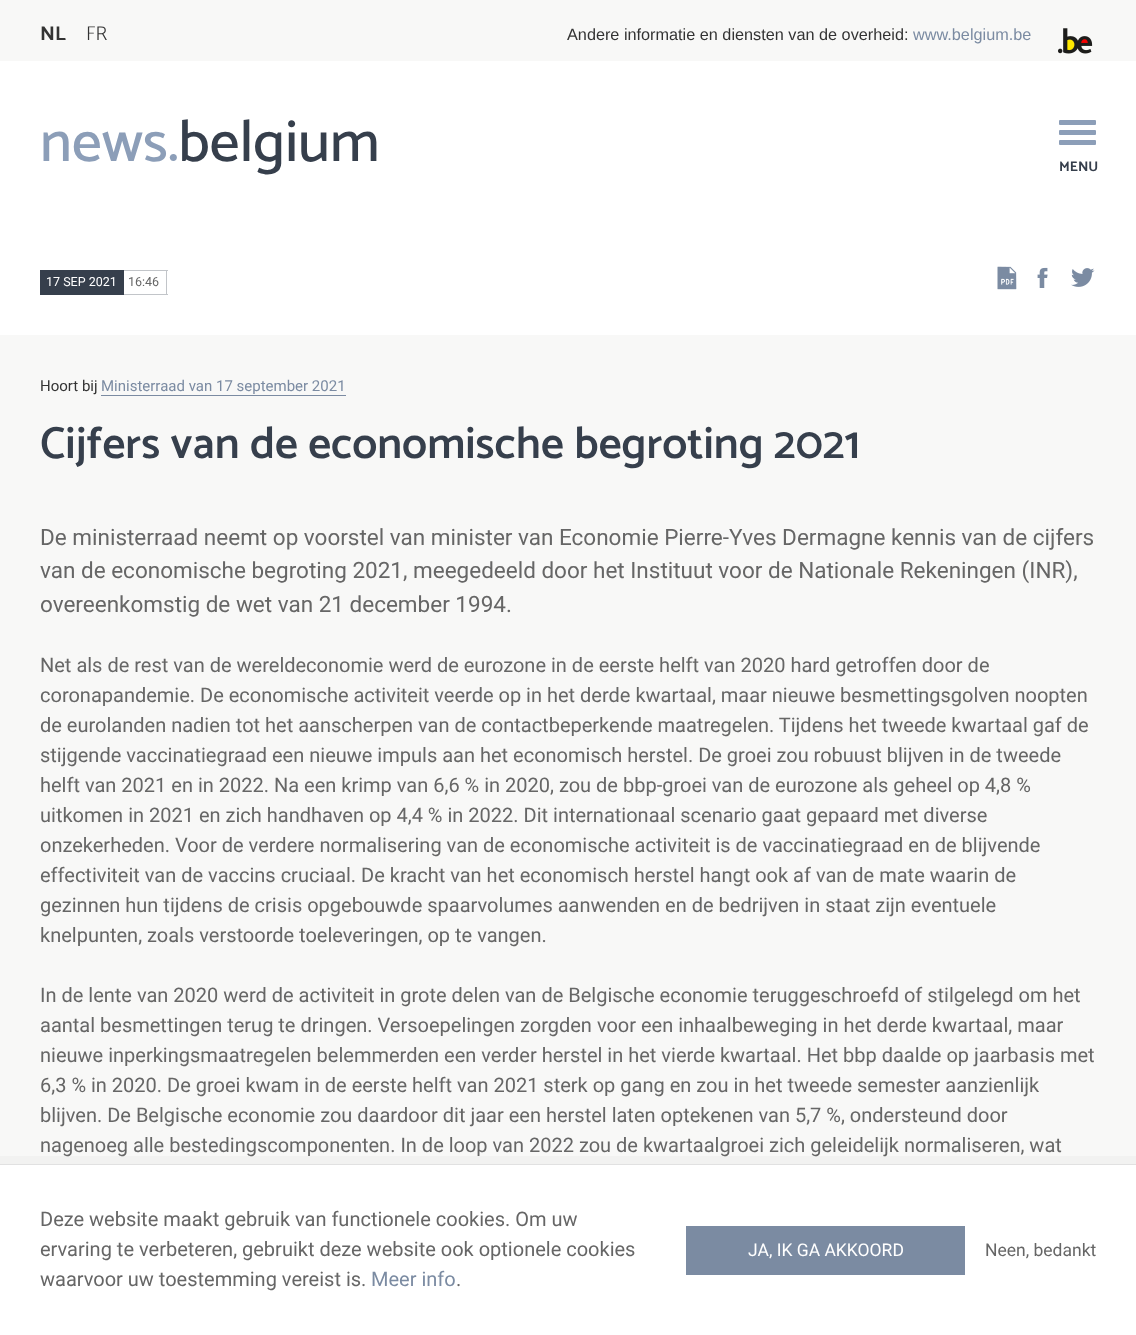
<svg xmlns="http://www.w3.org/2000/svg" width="1136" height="1335">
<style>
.a{font:bold 20px Catamaran;fill:#333}
.b{font:300 20px Catamaran;fill:#333}
.c{font:16.25px Liberation Sans;fill:#333}
.d{font:16.25px Liberation Sans;fill:#7b8ba2}
.e{font:500 59px Catamaran;fill:#8c9eb8}
.f{font:500 59px Catamaran;fill:#363f4c}
.g{font:bold 14px Catamaran;fill:#363f4c}
.h{font:12.5px Roboto;fill:#fff}
.i{font:12.5px Roboto;fill:#666}
.j{font:15px Roboto;fill:#333}
.k{font:15px Roboto;fill:#7b8ba2}
.l{font:600 45px Catamaran;fill:#363f4c}
.m{font:22.5px Roboto;fill:#666}
.n{font:20px Roboto;fill:#666}
.o{font:20px Roboto;fill:#7b8ba2}
.p{font:17.5px Roboto;fill:#fff}
.q{font:17.5px Roboto;fill:#666}
</style>
<rect width="100%" height="100%" fill="#f8f8f7"/>
<image href="1.png" x="1058" y="28" width="35" height="26"/>
<path fill="#fff" d="M0 61h1136v274H0z"/>
<rect fill="#8c9eb8" x="1059" y="120" width="37" height="5" rx="1"/>
<rect fill="#8c9eb8" x="1059" y="130" width="37" height="5" rx="1"/>
<rect fill="#8c9eb8" x="1059" y="140" width="37" height="5" rx="1"/>
<path fill="#363f4c" d="M40 270h84v25H40z"/>
<path fill="#c2c5c9" d="M124 270h44v1H124z"/>
<path fill="#c2c5c9" d="M166 270h1v25H166z"/>
<path fill="#c2c5c9" d="M124 294h44v1H124z"/>
<image href="2.png" x="997" y="266" width="20" height="24"/>
<image href="3.png" x="1037" y="267" width="11" height="21"/>
<image href="4.png" x="1071" y="268" width="24" height="19"/>
<path fill="#7b8ba2" d="M101 395h245v1H101z"/>
<path fill="#33333308" d="M-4 1156v179h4v-171h1136v171h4v-179z"/>
<path fill="#fff" d="M0 1165h1136v170H0z"/>
<path fill="#e1e1e1" d="M0 1164h1136v1H0z"/>
<path fill="#7b8ba2" d="M686 1226h279v49H686z"/>
<text class="a" x="40" y="40">NL</text>
<text class="b" x="86" y="40">FR</text>
<text class="c" x="567" y="40">Andere informatie en diensten van de overheid:</text>
<text class="d" x="913" y="40">www.belgium.be</text>
<text class="e" x="40" y="161">news.</text>
<text class="f" x="178" y="161">belgium</text>
<text class="g" x="1059" y="171">MENU</text>
<text class="h" x="46" y="286">17 SEP 2021</text>
<text class="i" x="128" y="286">16:46</text>
<text class="j" x="40" y="391">Hoort bij</text>
<text class="k" x="101" y="391">Ministerraad van 17 september 2021</text>
<text class="l" x="40" y="458">Cijfers van de economische begroting 2021</text>
<text class="m" x="40" y="545">De ministerraad neemt op voorstel van minister van Economie Pierre-Yves Dermagne kennis van de cijfers</text>
<text class="m" x="40" y="578">van de economische begroting 2021, meegedeeld door het Instituut voor de Nationale Rekeningen (INR),</text>
<text class="m" x="40" y="612">overeenkomstig de wet van 21 december 1994.</text>
<text class="n" x="40" y="672">Net als de rest van de wereldeconomie werd de eurozone in de eerste helft van 2020 hard getroffen door de</text>
<text class="n" x="40" y="702">coronapandemie. De economische activiteit veerde op in het derde kwartaal, maar nieuwe besmettingsgolven noopten</text>
<text class="n" x="40" y="732">de eurolanden nadien tot het aanscherpen van de contactbeperkende maatregelen. Tijdens het tweede kwartaal gaf de</text>
<text class="n" x="40" y="762">stijgende vaccinatiegraad een nieuwe impuls aan het economisch herstel. De groei zou robuust blijven in de tweede</text>
<text class="n" x="40" y="792">helft van 2021 en in 2022. Na een krimp van 6,6 % in 2020, zou de bbp-groei van de eurozone als geheel op 4,8 %</text>
<text class="n" x="40" y="822">uitkomen in 2021 en zich handhaven op 4,4 % in 2022. Dit internationaal scenario gaat gepaard met diverse</text>
<text class="n" x="40" y="852">onzekerheden. Voor de verdere normalisering van de economische activiteit is de vaccinatiegraad en de blijvende</text>
<text class="n" x="40" y="882">effectiviteit van de vaccins cruciaal. De kracht van het economisch herstel hangt ook af van de mate waarin de</text>
<text class="n" x="40" y="912">gezinnen hun tijdens de crisis opgebouwde spaarvolumes aanwenden en de bedrijven in staat zijn eventuele</text>
<text class="n" x="40" y="942">knelpunten, zoals verstoorde toeleveringen, op te vangen.</text>
<text class="n" x="40" y="1002">In de lente van 2020 werd de activiteit in grote delen van de Belgische economie teruggeschroefd of stilgelegd om het</text>
<text class="n" x="40" y="1032">aantal besmettingen terug te dringen. Versoepelingen zorgden voor een inhaalbeweging in het derde kwartaal, maar</text>
<text class="n" x="40" y="1062">nieuwe inperkingsmaatregelen belemmerden een verder herstel in het vierde kwartaal. Het bbp daalde op jaarbasis met</text>
<text class="n" x="40" y="1092">6,3 % in 2020. De groei kwam in de eerste helft van 2021 sterk op gang en zou in het tweede semester aanzienlijk</text>
<text class="n" x="40" y="1122">blijven. De Belgische economie zou daardoor dit jaar een herstel laten optekenen van 5,7 %, ondersteund door</text>
<text class="n" x="40" y="1152">nagenoeg alle bestedingscomponenten. In de loop van 2022 zou de kwartaalgroei zich geleidelijk normaliseren, wat</text>
<text class="n" x="40" y="1226">Deze website maakt gebruik van functionele cookies. Om uw</text>
<text class="n" x="40" y="1256">ervaring te verbeteren, gebruikt deze website ook optionele cookies</text>
<text class="n" x="40" y="1286">waarvoor uw toestemming vereist is.</text>
<text class="o" x="371" y="1286">Meer info</text>
<text class="n" x="456" y="1286">.</text>
<text class="p" x="748" y="1256">JA, IK GA AKKOORD</text>
<text class="q" x="985" y="1256">Neen, bedankt</text>
</svg>
